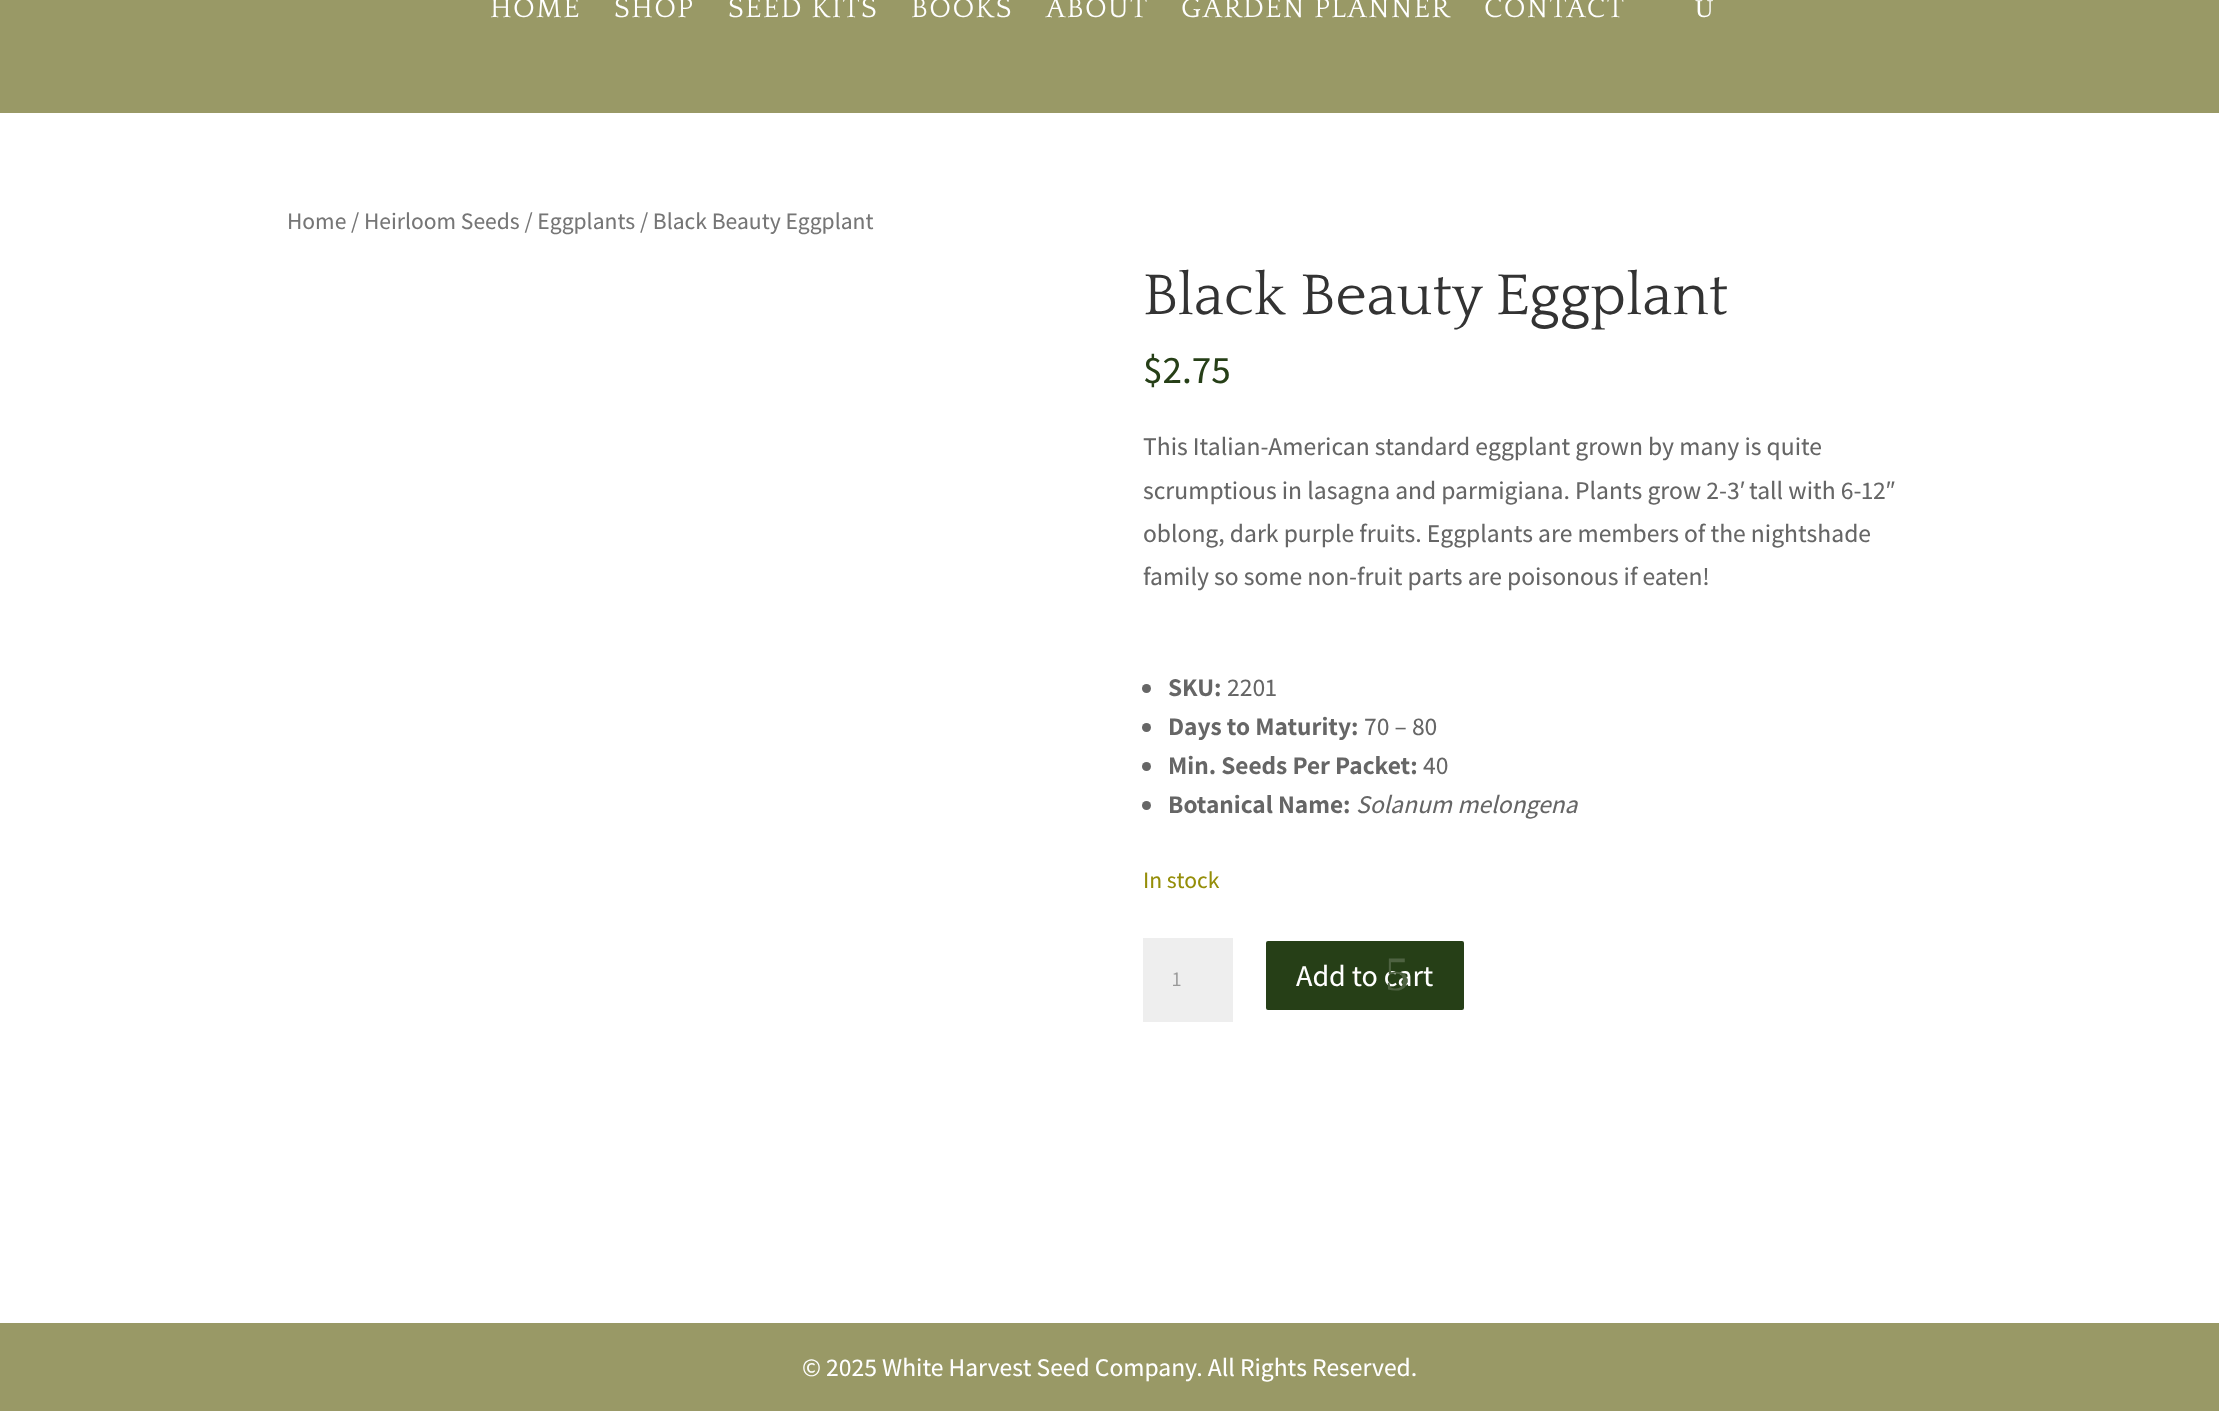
<svg xmlns="http://www.w3.org/2000/svg" width="2219" height="1411">
<style>
.a{font:28.5px Quattrocento;letter-spacing:1.5px;fill:#fff}
.b{font:25.5px Liberation Serif;fill:#fff}
.c{font:200 23.5px Assistant;fill:#767676}
.d{font:60px Quattrocento;fill:#333}
.e{font:200 39px Assistant;fill:#263f17}
.f{font:200 25.5px Assistant;fill:#666}
.g{font:25.5px Liberation Sans;fill:#666}
.h{font:200 25.5px 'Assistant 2';fill:#666}
.i{font:italic 200 25.5px Assistant;fill:#666}
.j{font:200 23.5px Assistant;fill:#958e09}
.k{font:200 21px 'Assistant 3';fill:#999}
.l{font:200 30px Assistant;fill:#fff}
.m{font:48px Liberation Serif;fill:#4e6241}
.n{font:200 25.5px Assistant;fill:#fff}
</style>
<rect width="100%" height="100%" fill="#fff"/>
<path fill="#996" d="M0 0h2219v113H0z"/>
<circle fill="#666" cx="1146.5" cy="688.5" r="4.5"/>
<circle fill="#666" cx="1146.5" cy="727.5" r="4.5"/>
<circle fill="#666" cx="1146.5" cy="766.5" r="4.5"/>
<circle fill="#666" cx="1146.5" cy="805.5" r="4.5"/>
<path fill="#eee" d="M1143 938h90v84H1143z"/>
<rect fill="#263f17" stroke="#fff" stroke-width="3" x="1264.5" y="939.5" width="201" height="72" rx="3.5"/>
<path fill="#996" d="M0 1323h2219v88H0z"/>
<text class="a" x="490" y="17">HOME</text>
<text class="a" x="614" y="17">SHOP</text>
<text class="a" x="728" y="17">SEED KITS</text>
<text class="a" x="911" y="17">BOOKS</text>
<text class="a" x="1046" y="17">ABOUT</text>
<text class="a" x="1181" y="17">GARDEN PLANNER</text>
<text class="a" x="1484" y="17">CONTACT</text>
<text class="b" x="1695" y="17">U</text>
<text class="c" x="287" y="229">Home / Heirloom Seeds / Eggplants / Black Beauty Eggplant</text>
<text class="d" x="1143" y="314">Black Beauty Eggplant</text>
<text class="e" x="1143" y="383">$2.75</text>
<text class="f" x="1143" y="455">This Italian-American standard eggplant grown by many is quite</text>
<text class="f" x="1143" y="499">scrumptious in lasagna and parmigiana. Plants grow 2-3</text>
<text class="g" x="1740" y="499">′</text>
<text class="f" x="1749" y="499">tall with 6-12</text>
<text class="g" x="1886" y="499">″</text>
<text class="f" x="1143" y="542">oblong, dark purple fruits. Eggplants are members of the nightshade</text>
<text class="f" x="1143" y="585">family so some non-fruit parts are poisonous if eaten!</text>
<text class="h" x="1168" y="696">SKU:</text>
<text class="f" x="1227" y="696">2201</text>
<text class="h" x="1168" y="735">Days to Maturity:</text>
<text class="f" x="1364" y="735">70 – 80</text>
<text class="h" x="1168" y="774">Min. Seeds Per Packet:</text>
<text class="f" x="1423" y="774">40</text>
<text class="h" x="1168" y="813">Botanical Name:</text>
<text class="i" x="1356" y="813">Solanum melongena</text>
<text class="j" x="1143" y="888">In stock</text>
<text class="k" x="1172" y="986">1</text>
<text class="l" x="1296" y="986">Add to cart</text>
<text class="m" x="1385" y="990">5</text>
<text class="n" x="802" y="1376">© 2025 White Harvest Seed Company. All Rights Reserved.</text>
</svg>
